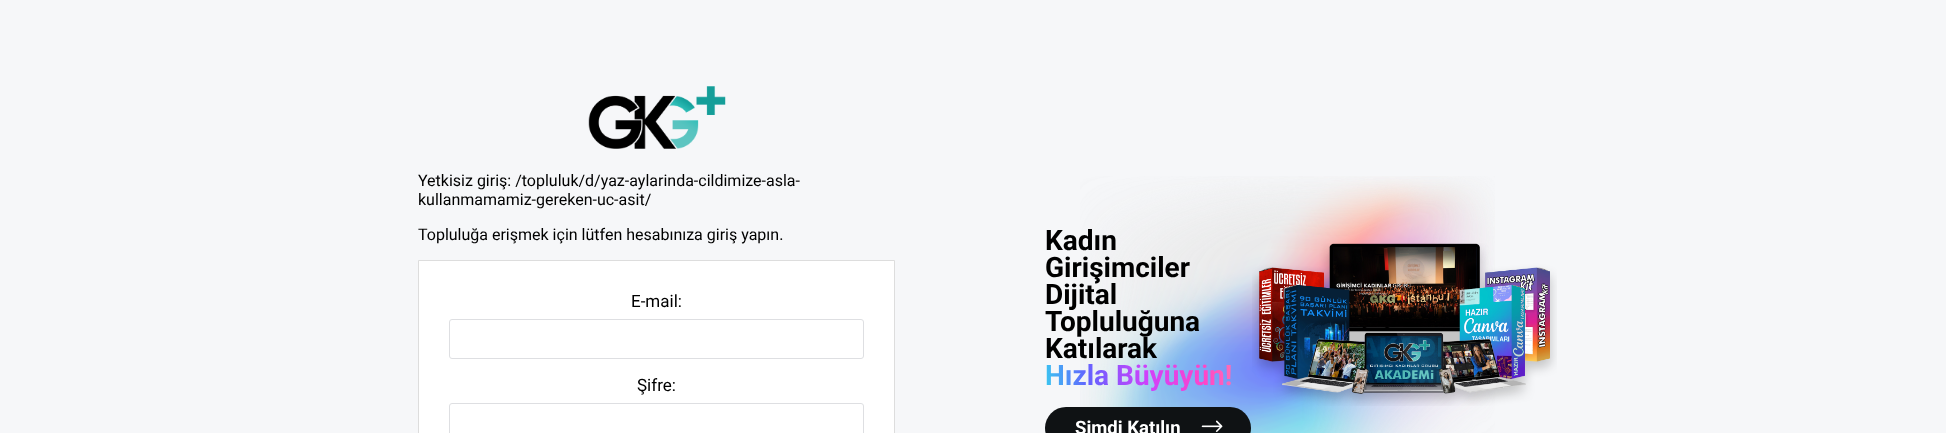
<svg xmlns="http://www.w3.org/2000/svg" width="1946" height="433">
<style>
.a{font:16px Roboto;fill:#000}
.b{font:17px Roboto;fill:#000}
.c{font:bold 28px Roboto;fill:#000}
.d{font:bold 28px Roboto;fill:url(#g1)}
.e{font:bold 18.5px Roboto;fill:#fff}
</style>
<defs>
<linearGradient id="g1" gradientUnits="userSpaceOnUse" x1="1263" y1="358" x2="1030" y2="390"><stop offset="0" stop-color="#ff9e9e"/><stop offset="0.25" stop-color="#ff46c8"/><stop offset="0.5" stop-color="#d040fb"/><stop offset="0.75" stop-color="#6363ff"/><stop offset="1" stop-color="#2aebeb"/></linearGradient>
</defs>
<rect width="100%" height="100%" fill="#f6f7f9"/>
<image href="1.png" x="588" y="86" width="138" height="63"/>
<path fill="#fff" stroke="#ddd" d="M418.5 260.5h476v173H418.5z"/>
<rect fill="none" stroke="#dedfe2" x="449.5" y="319.5" width="414" height="39" rx="2.5"/>
<rect fill="none" stroke="#dedfe2" x="449.5" y="403.5" width="414" height="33" rx="2.5"/>
<image href="2.png" x="1080" y="176" width="415" height="257"/>
<rect fill="#0f1214" x="1045" y="407" width="206" height="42" rx="21"/>
<image href="3.png" x="1201" y="420" width="22" height="12"/>
<image href="4.png" x="1252" y="243" width="305" height="163"/>
<text class="a" x="418" y="186">Yetkisiz giriş: /topluluk/d/yaz-aylarinda-cildimize-asla-</text>
<text class="a" x="418" y="205">kullanmamamiz-gereken-uc-asit/</text>
<text class="a" x="418" y="240">Topluluğa erişmek için lütfen hesabınıza giriş yapın.</text>
<text class="b" x="631" y="307">E-mail:</text>
<text class="b" x="637" y="391">Şifre:</text>
<text class="c" x="1045" y="250">Kadın</text>
<text class="c" x="1045" y="277">Girişimciler</text>
<text class="c" x="1045" y="304">Dijital</text>
<text class="c" x="1045" y="331">Topluluğuna</text>
<text class="c" x="1045" y="358">Katılarak</text>
<text class="d" x="1045" y="385">Hızla Büyüyün!</text>
<text class="e" x="1075" y="434">Şimdi Katılın</text>
</svg>
